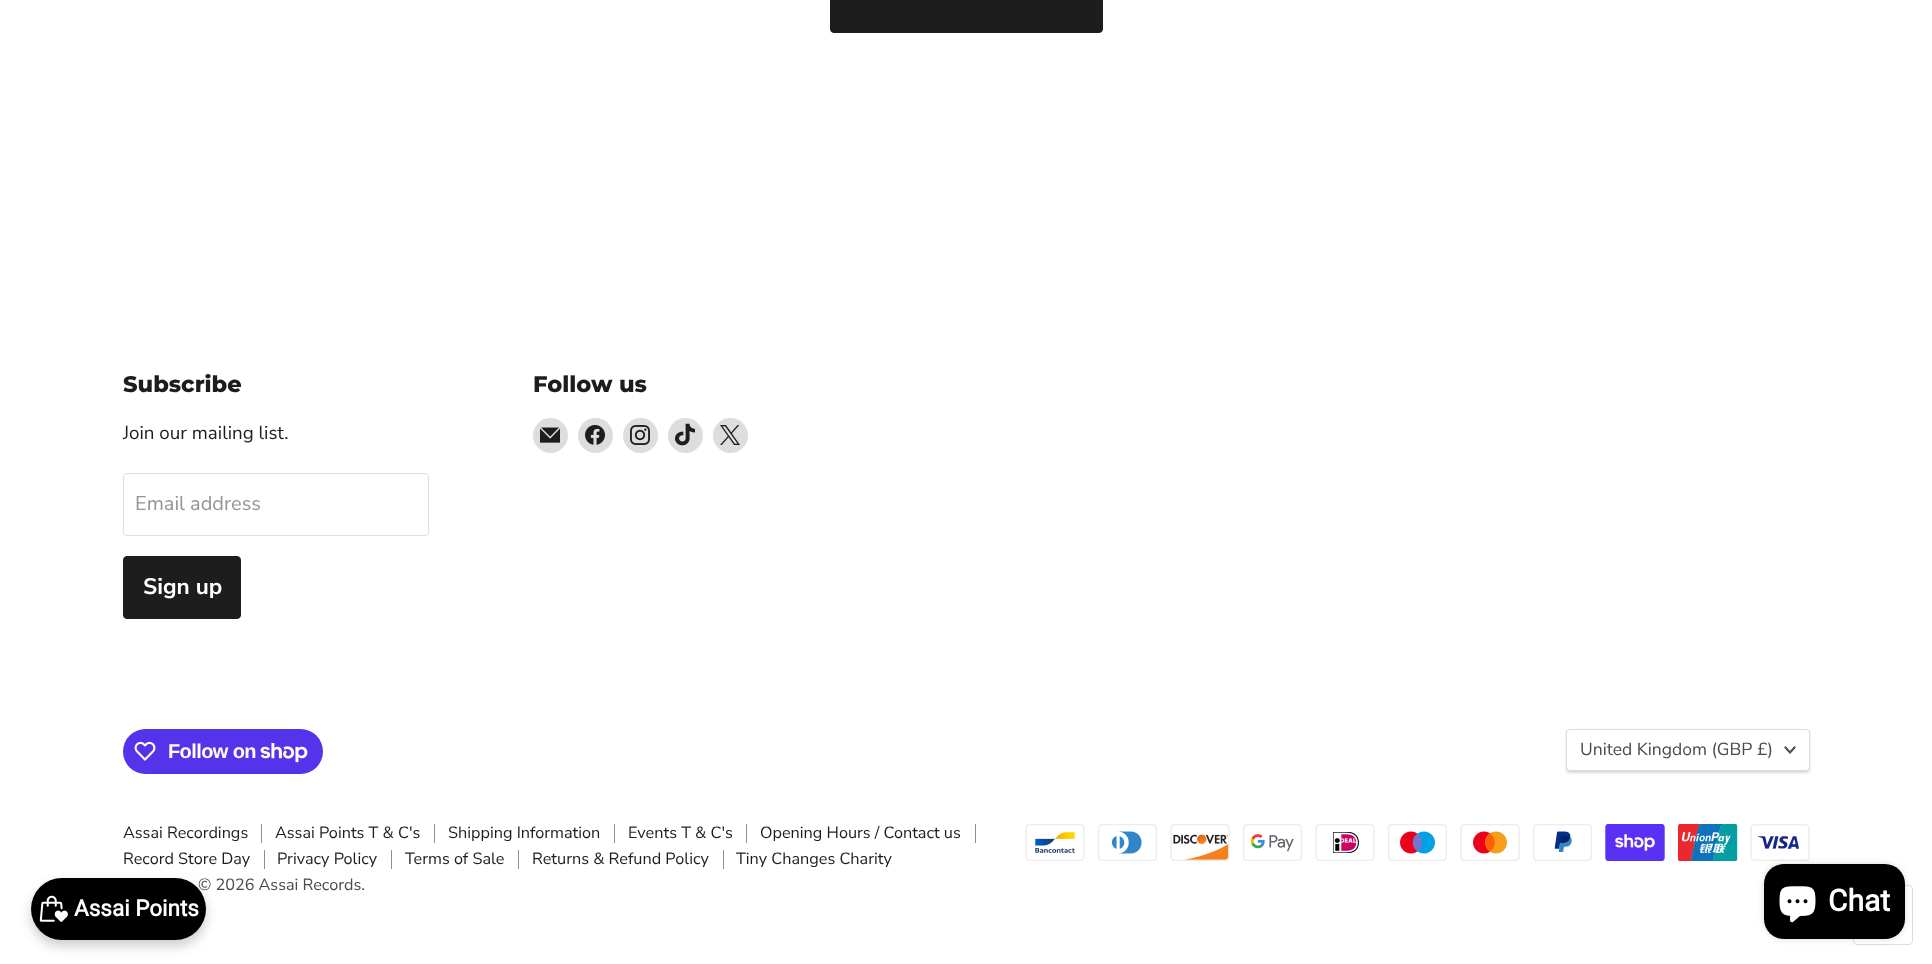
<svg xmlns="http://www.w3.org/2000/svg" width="1932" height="964">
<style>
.a{font:800 22.5px Montserrat;fill:#1d1d1d}
.b{font:18.75px Nunito Sans;fill:#1d1d1d}
.c{font:20px Nunito Sans;fill:#949494}
.d{font:bold 22.5px Nunito Sans;fill:#fff}
.e{font:bold 20px Liberation Sans;letter-spacing:-0.6px;fill:#fff}
.f{font:17.5px Nunito Sans;fill:#4a4a4a}
.g{font:16.25px Nunito Sans;fill:#1d1d1d}
.h{font:16.25px Nunito Sans;fill:#4a4a4a}
.i{font:bold 22.5px Roboto;fill:#fff}
.j{font:bold 30px Roboto;fill:#fff}
</style>
<rect width="100%" height="100%" fill="#fff"/>
<rect fill="#1d1d1d" stroke="#1d1d1d" x="830.5" y="-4.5" width="272" height="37" rx="3.5"/>
<rect fill="none" stroke="#ddd" x="123.5" y="473.5" width="305" height="62" rx="3.5"/>
<rect fill="#1d1d1d" stroke="#1d1d1d" x="123.5" y="556.5" width="117" height="62" rx="3.5"/>
<circle fill="#ddd" cx="550.5" cy="435.5" r="17.5"/>
<image href="1.png" x="540" y="427" width="20" height="16"/>
<circle fill="#ddd" cx="595.5" cy="435.5" r="17.5"/>
<image href="2.png" x="585" y="425" width="20" height="20"/>
<circle fill="#ddd" cx="640.5" cy="435.5" r="17.5"/>
<image href="3.png" x="630" y="425" width="20" height="20"/>
<circle fill="#ddd" cx="685.5" cy="435.5" r="17.5"/>
<image href="4.png" x="675" y="423" width="20" height="23"/>
<circle fill="#ddd" cx="730.5" cy="435.5" r="17.5"/>
<image href="5.png" x="720" y="425" width="20" height="20"/>
<rect fill="#5433eb" x="123" y="729" width="200" height="45" rx="22.5"/>
<image href="6.png" x="134" y="741" width="22" height="20"/>
<image href="7.png" x="260" y="743" width="48" height="20"/>
<rect fill="#00000026" filter="blur(1px)" x="1566" y="730" width="244" height="43" rx="4"/>
<rect fill="#fff" stroke="#ddd" x="1566.5" y="729.5" width="243" height="41" rx="3.5"/>
<path fill="none" stroke="#4d4d4d" stroke-width="2" stroke-linecap="square" d="M1790 752.5l4.5-5m-4.5 5l-4.5-5"/>
<path fill="#8e8e8e" d="M261 824h1v19H261z"/>
<path fill="#8e8e8e" d="M434 824h1v19H434z"/>
<path fill="#8e8e8e" d="M614 824h1v19H614z"/>
<path fill="#8e8e8e" d="M746 824h1v19H746z"/>
<path fill="#8e8e8e" d="M975 824h1v19H975z"/>
<path fill="#8e8e8e" d="M264 850h1v19H264z"/>
<path fill="#8e8e8e" d="M391 850h1v19H391z"/>
<path fill="#8e8e8e" d="M518 850h1v19H518z"/>
<path fill="#8e8e8e" d="M723 850h1v19H723z"/>
<image href="8.png" x="1025" y="824" width="60" height="37"/>
<image href="9.png" x="1098" y="824" width="59" height="37"/>
<image href="10.png" x="1170" y="824" width="60" height="37"/>
<image href="11.png" x="1243" y="824" width="59" height="37"/>
<image href="12.png" x="1315" y="824" width="60" height="37"/>
<image href="13.png" x="1388" y="824" width="59" height="37"/>
<image href="14.png" x="1460" y="824" width="60" height="37"/>
<image href="15.png" x="1533" y="824" width="59" height="37"/>
<image href="16.png" x="1605" y="824" width="60" height="37"/>
<image href="17.png" x="1678" y="824" width="60" height="37"/>
<image href="18.png" x="1750" y="824" width="60" height="37"/>
<rect fill="none" stroke="#ddd" x="1853.5" y="885.5" width="59" height="59" rx="3.5"/>
<rect fill="#00000033" filter="blur(6px)" x="31" y="884" width="175" height="62" rx="31"/>
<rect fill="#00000026" filter="blur(3px)" x="1764" y="864" width="141" height="75" rx="20"/>
<rect fill="#000" x="1764" y="864" width="141" height="75" rx="20"/>
<image href="20.png" x="1779" y="886" width="37" height="37"/>
<text class="a" x="123" y="392">Subscribe</text>
<text class="b" x="123" y="439">Join our mailing list.</text>
<text class="c" x="135" y="510">Email address</text>
<text class="d" x="143" y="594">Sign up</text>
<text class="a" x="533" y="392">Follow us</text>
<text class="e" x="168" y="758">Follow on</text>
<text class="f" x="1580" y="755">United Kingdom (GBP £)</text>
<text class="g" x="123" y="838">Assai Recordings</text>
<text class="g" x="275" y="838">Assai Points T &amp; C's</text>
<text class="g" x="448" y="838">Shipping Information</text>
<text class="g" x="628" y="838">Events T &amp; C's</text>
<text class="g" x="760" y="838">Opening Hours / Contact us</text>
<text class="g" x="123" y="864">Record Store Day</text>
<text class="g" x="277" y="864">Privacy Policy</text>
<text class="g" x="405" y="864">Terms of Sale</text>
<text class="g" x="532" y="864">Returns &amp; Refund Policy</text>
<text class="g" x="736" y="864">Tiny Changes Charity</text>
<text class="h" x="198" y="890">© 2026 Assai Records.</text>
<rect fill="#000" x="31" y="878" width="175" height="62" rx="31"/>
<image href="19.png" x="39" y="895" width="29" height="27"/>
<text class="i" x="74" y="916">Assai Points</text>
<text class="j" x="1828" y="911">Chat</text>
</svg>
